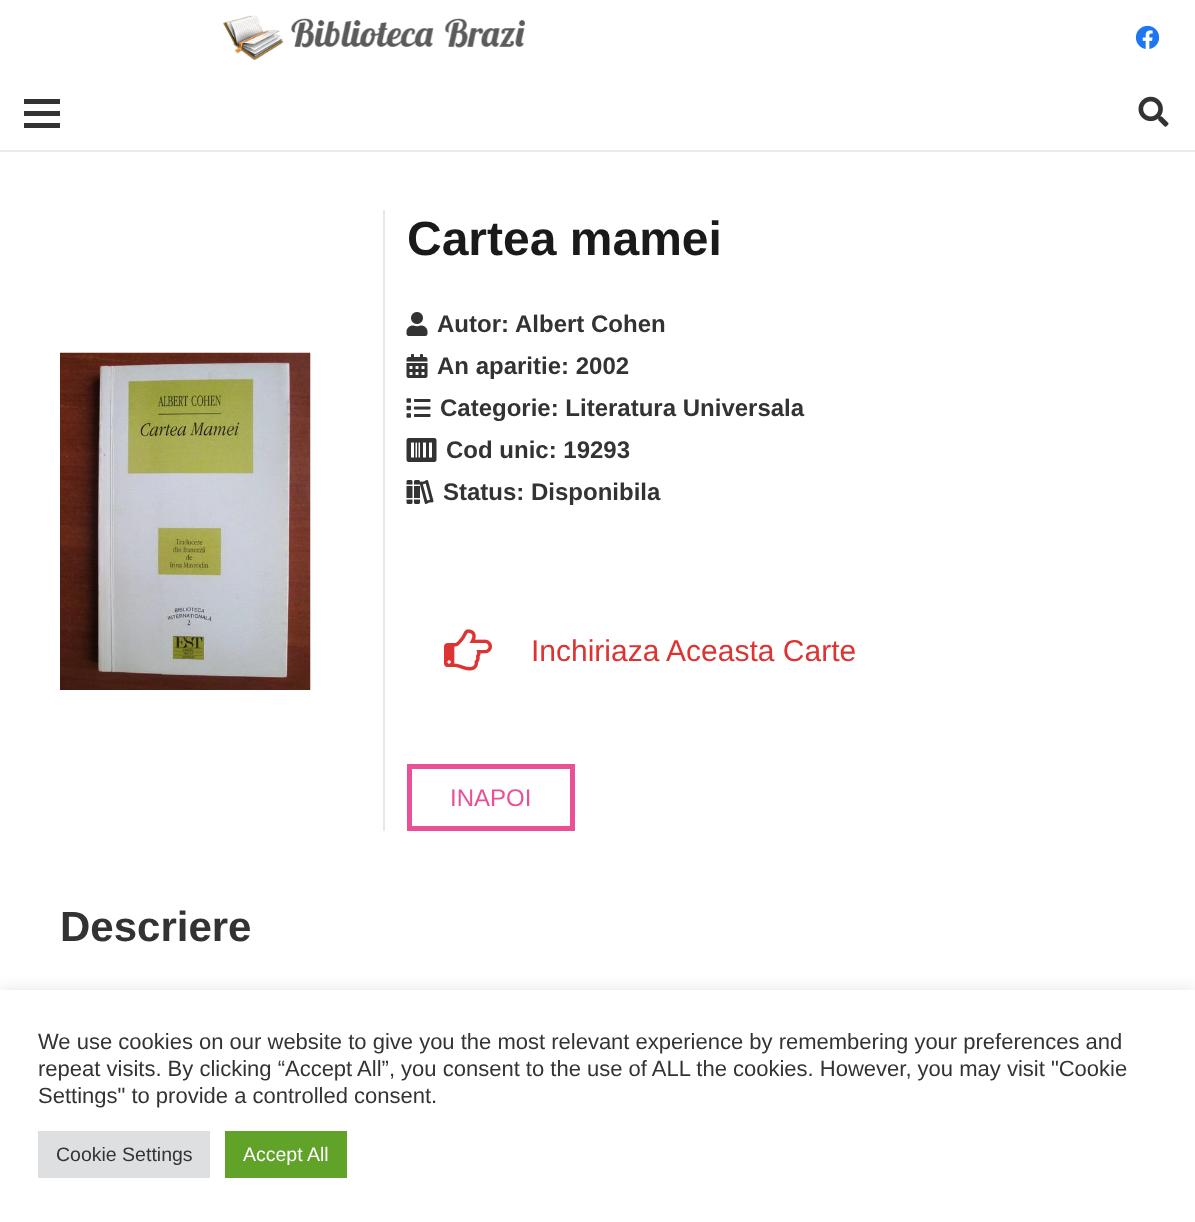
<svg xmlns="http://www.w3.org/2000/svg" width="1195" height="1222">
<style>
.a{font:bold 48px Liberation Sans;fill:#1a1a1a}
.b{font:bold 24px Liberation Sans;fill:#333}
.c{font:30px Liberation Sans;fill:#d33}
.d{font:24px Liberation Sans;fill:#e95095}
.e{font:bold 42px Liberation Sans;fill:#333}
.f{font:22px Liberation Sans;fill:#333}
.g{font:19.5px Liberation Sans;fill:#333}
.h{font:19.5px Liberation Sans;fill:#fff}
</style>
<rect width="100%" height="100%" fill="#fff"/>
<image href="1.png" x="223" y="15" width="302" height="45"/>
<image href="2.png" x="1135" y="25" width="25" height="24"/>
<path fill="#ebebeb" d="M0 150v2h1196v-75v73z"/>
<path fill="#333" d="M24 111h36v5H24z"/>
<path fill="#333" d="M24 99h36v5H24z"/>
<path fill="#333" d="M24 123h36v5H24z"/>
<image href="3.png" x="1138" y="96" width="31" height="31"/>
<image href="4.png" x="60" y="352" width="251" height="338"/>
<path fill="#e8e8e8" d="M383 210h2v621H383z"/>
<image href="5.png" x="406" y="312" width="22" height="24"/>
<image href="6.png" x="406" y="354" width="22" height="24"/>
<image href="7.png" x="406" y="398" width="25" height="20"/>
<image href="8.png" x="406" y="438" width="31" height="24"/>
<image href="9.png" x="406" y="480" width="28" height="24"/>
<image href="10.png" x="444" y="629" width="48" height="42"/>
<path fill="none" stroke="#e95095" stroke-width="5" d="M409.5 766.5h163v62H409.5z"/>
<path fill="#acabab4d" filter="blur(7.5px)" d="M0 989h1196v232H0z"/>
<path fill="#fff" d="M0 990h1195v232H0z"/>
<path fill="#dedfe0" d="M38 1131h172v47H38z"/>
<path fill="#61a229" d="M225 1131h122v47H225z"/>
<text class="a" x="407" y="255">Cartea mamei</text>
<text class="b" x="437" y="332">Autor:</text>
<text class="b" x="515" y="332">Albert Cohen</text>
<text class="b" x="437" y="374">An aparitie: 2002</text>
<text class="b" x="440" y="416">Categorie: Literatura Universala</text>
<text class="b" x="446" y="458">Cod unic: 19293</text>
<text class="b" x="443" y="500">Status: Disponibila</text>
<text class="c" x="531" y="661">Inchiriaza Aceasta Carte</text>
<text class="d" x="450" y="806">INAPOI</text>
<text class="e" x="60" y="941">Descriere</text>
<text class="f" x="38" y="1049">We use cookies on our website to give you the most relevant experience by remembering your preferences and</text>
<text class="f" x="38" y="1076">repeat visits. By clicking “Accept All”, you consent to the use of ALL the cookies. However, you may visit "Cookie</text>
<text class="f" x="38" y="1103">Settings" to provide a controlled consent.</text>
<text class="g" x="56" y="1161">Cookie Settings</text>
<text class="h" x="243" y="1161">Accept All</text>
</svg>
